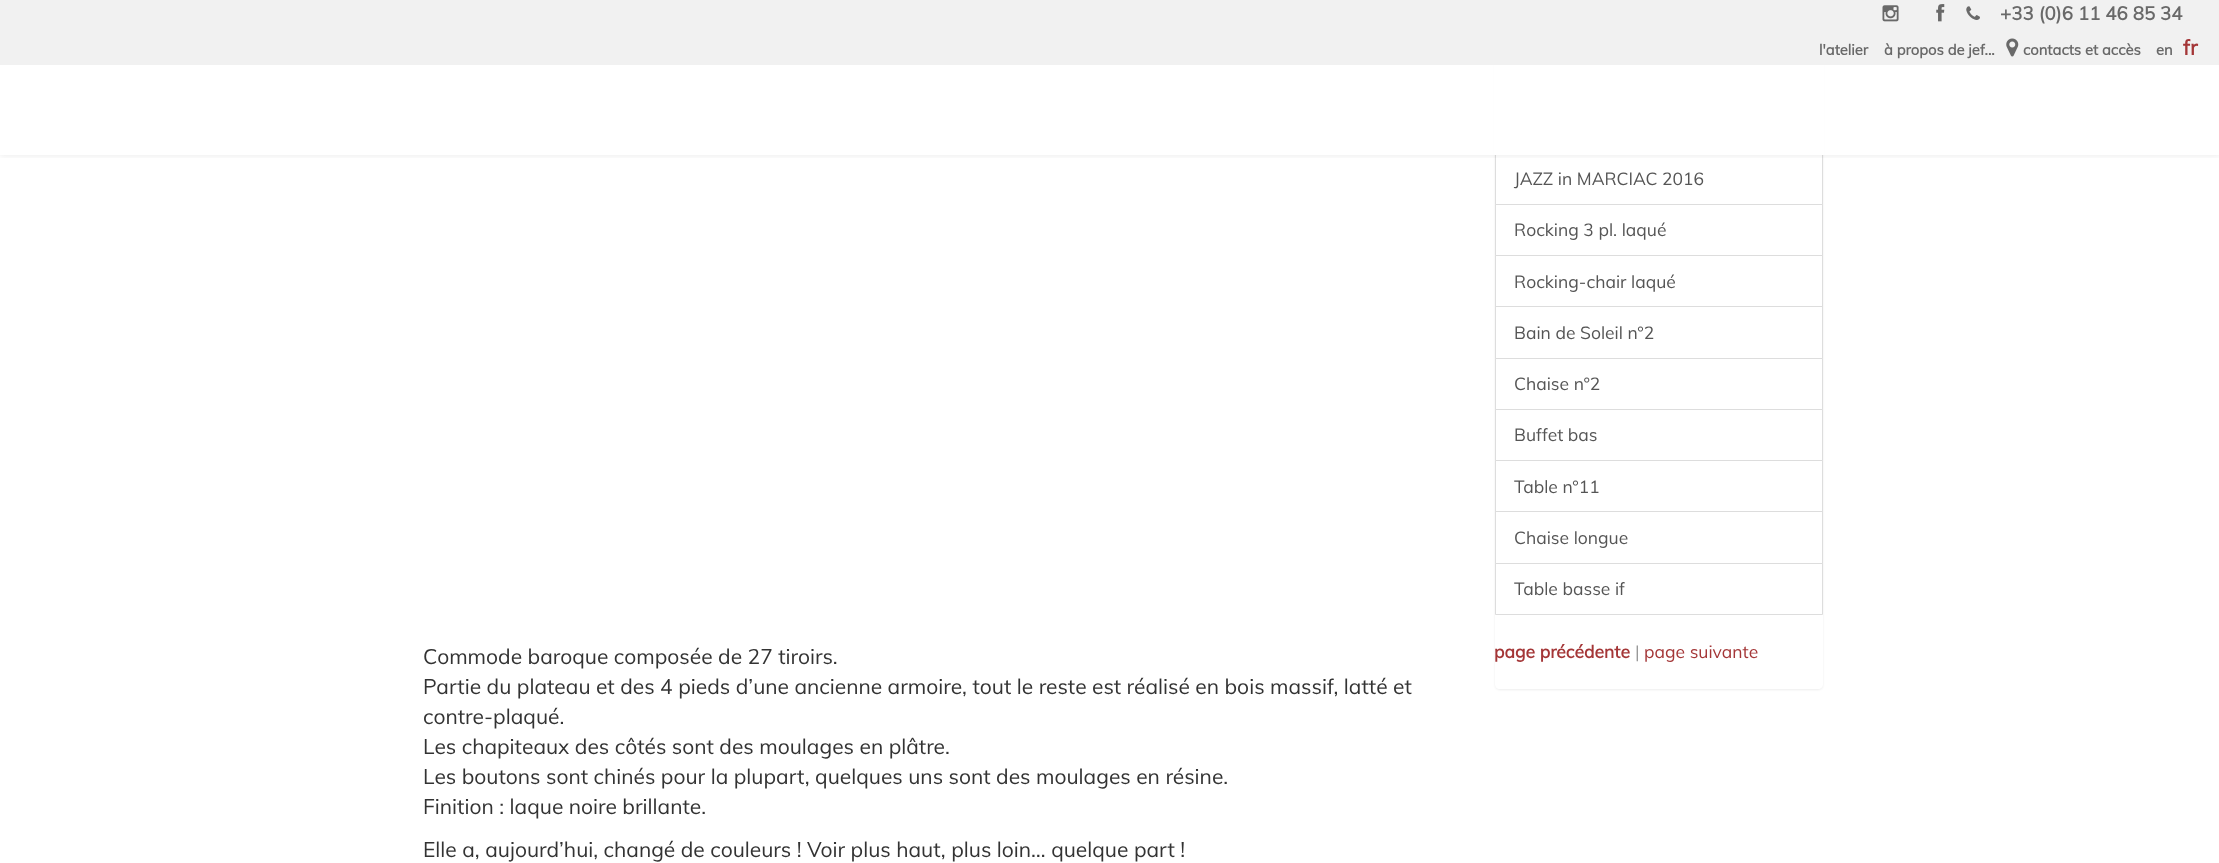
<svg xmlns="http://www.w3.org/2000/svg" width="2219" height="863">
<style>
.a{font:bold 18.75px Muli;fill:#696969}
.b{font:bold 14.75px Muli;fill:#696969}
.c{font:bold 21px Muli;fill:#a43637}
.d{font:17.5px Muli;fill:#555}
.e{font:bold 17.5px Muli;fill:#a43637}
.f{font:17.5px Muli;fill:#999}
.g{font:17.5px Muli;fill:#a43637}
.h{font:21px Muli;fill:#333}
</style>
<defs>
<clipPath id="clip1"><path d="M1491 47h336v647h-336zm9 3h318c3 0 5 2 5 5v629c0 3-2 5-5 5h-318c-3 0-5-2-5-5v-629c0-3 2-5 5-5z" clip-rule="evenodd"/></clipPath>
<clipPath id="clip2"><path d="M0 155h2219v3H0z"/></clipPath>
</defs>
<rect width="100%" height="100%" fill="#fff"/>
<g clip-path="url(#clip1)">
<rect fill="#00000012" filter="blur(1px)" x="1495" y="51" width="328" height="639" rx="5"/>
</g>
<path fill="none" stroke="#ddd" d="M1495.5 153.5h327v51H1495.5z"/>
<path fill="#fff" d="M1494 65h330v90H1494z"/>
<g clip-path="url(#clip2)">
<path fill="#00000012" filter="blur(3px)" d="M0 1h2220v155H0z"/>
</g>
<path fill="#f1f1f1" d="M0 0h2219v65H0z"/>
<image href="1.png" x="1882" y="5" width="17" height="17"/>
<image href="2.png" x="1936" y="4" width="9" height="18"/>
<image href="3.png" x="1966" y="6" width="14" height="14"/>
<image href="4.png" x="2006" y="38" width="13" height="19"/>
<path fill="none" stroke="#ddd" d="M1495.5 204.5h327v51H1495.5z"/>
<path fill="none" stroke="#ddd" d="M1495.5 255.5h327v52H1495.5z"/>
<path fill="#fff" d="M1496 307h326v1H1496z"/>
<path fill="none" stroke="#ddd" d="M1495.5 306.5h327v52H1495.5z"/>
<path fill="none" stroke="#ddd" d="M1495.5 358.5h327v51H1495.5z"/>
<path fill="none" stroke="#ddd" d="M1495.5 409.5h327v51H1495.5z"/>
<path fill="none" stroke="#ddd" d="M1495.5 460.5h327v52H1495.5z"/>
<path fill="#fff" d="M1496 512h326v1H1496z"/>
<path fill="none" stroke="#ddd" d="M1495.5 511.5h327v52H1495.5z"/>
<path fill="none" stroke="#ddd" d="M1495.5 563.5h327v51H1495.5z"/>
<text class="a" x="2000" y="20">+33 (0)6 11 46 85 34</text>
<text class="b" x="1819" y="55">l'atelier</text>
<text class="b" x="1884" y="55">à propos de jef...</text>
<text class="b" x="2023" y="55">contacts et accès</text>
<text class="b" x="2156" y="55">en</text>
<text class="c" x="2183" y="55">fr</text>
<text class="d" x="1514" y="185">JAZZ in MARCIAC 2016</text>
<text class="d" x="1514" y="236">Rocking 3 pl. laqué</text>
<text class="d" x="1514" y="288">Rocking-chair laqué</text>
<text class="d" x="1514" y="339">Bain de Soleil n°2</text>
<text class="d" x="1514" y="390">Chaise n°2</text>
<text class="d" x="1514" y="441">Buffet bas</text>
<text class="d" x="1514" y="493">Table n°11</text>
<text class="d" x="1514" y="544">Chaise longue</text>
<text class="d" x="1514" y="595">Table basse if</text>
<text class="e" x="1494" y="658">page précédente</text>
<text class="f" x="1635" y="658">|</text>
<text class="g" x="1644" y="658">page suivante</text>
<text class="h" x="423" y="664">Commode baroque composée de 27 tiroirs.</text>
<text class="h" x="423" y="694">Partie du plateau et des 4 pieds d’une ancienne armoire, tout le reste est réalisé en bois massif, latté et</text>
<text class="h" x="423" y="724">contre-plaqué.</text>
<text class="h" x="423" y="754">Les chapiteaux des côtés sont des moulages en plâtre.</text>
<text class="h" x="423" y="784">Les boutons sont chinés pour la plupart, quelques uns sont des moulages en résine.</text>
<text class="h" x="423" y="814">Finition : laque noire brillante.</text>
<text class="h" x="423" y="857">Elle a, aujourd’hui, changé de couleurs ! Voir plus haut, plus loin… quelque part !</text>
</svg>
